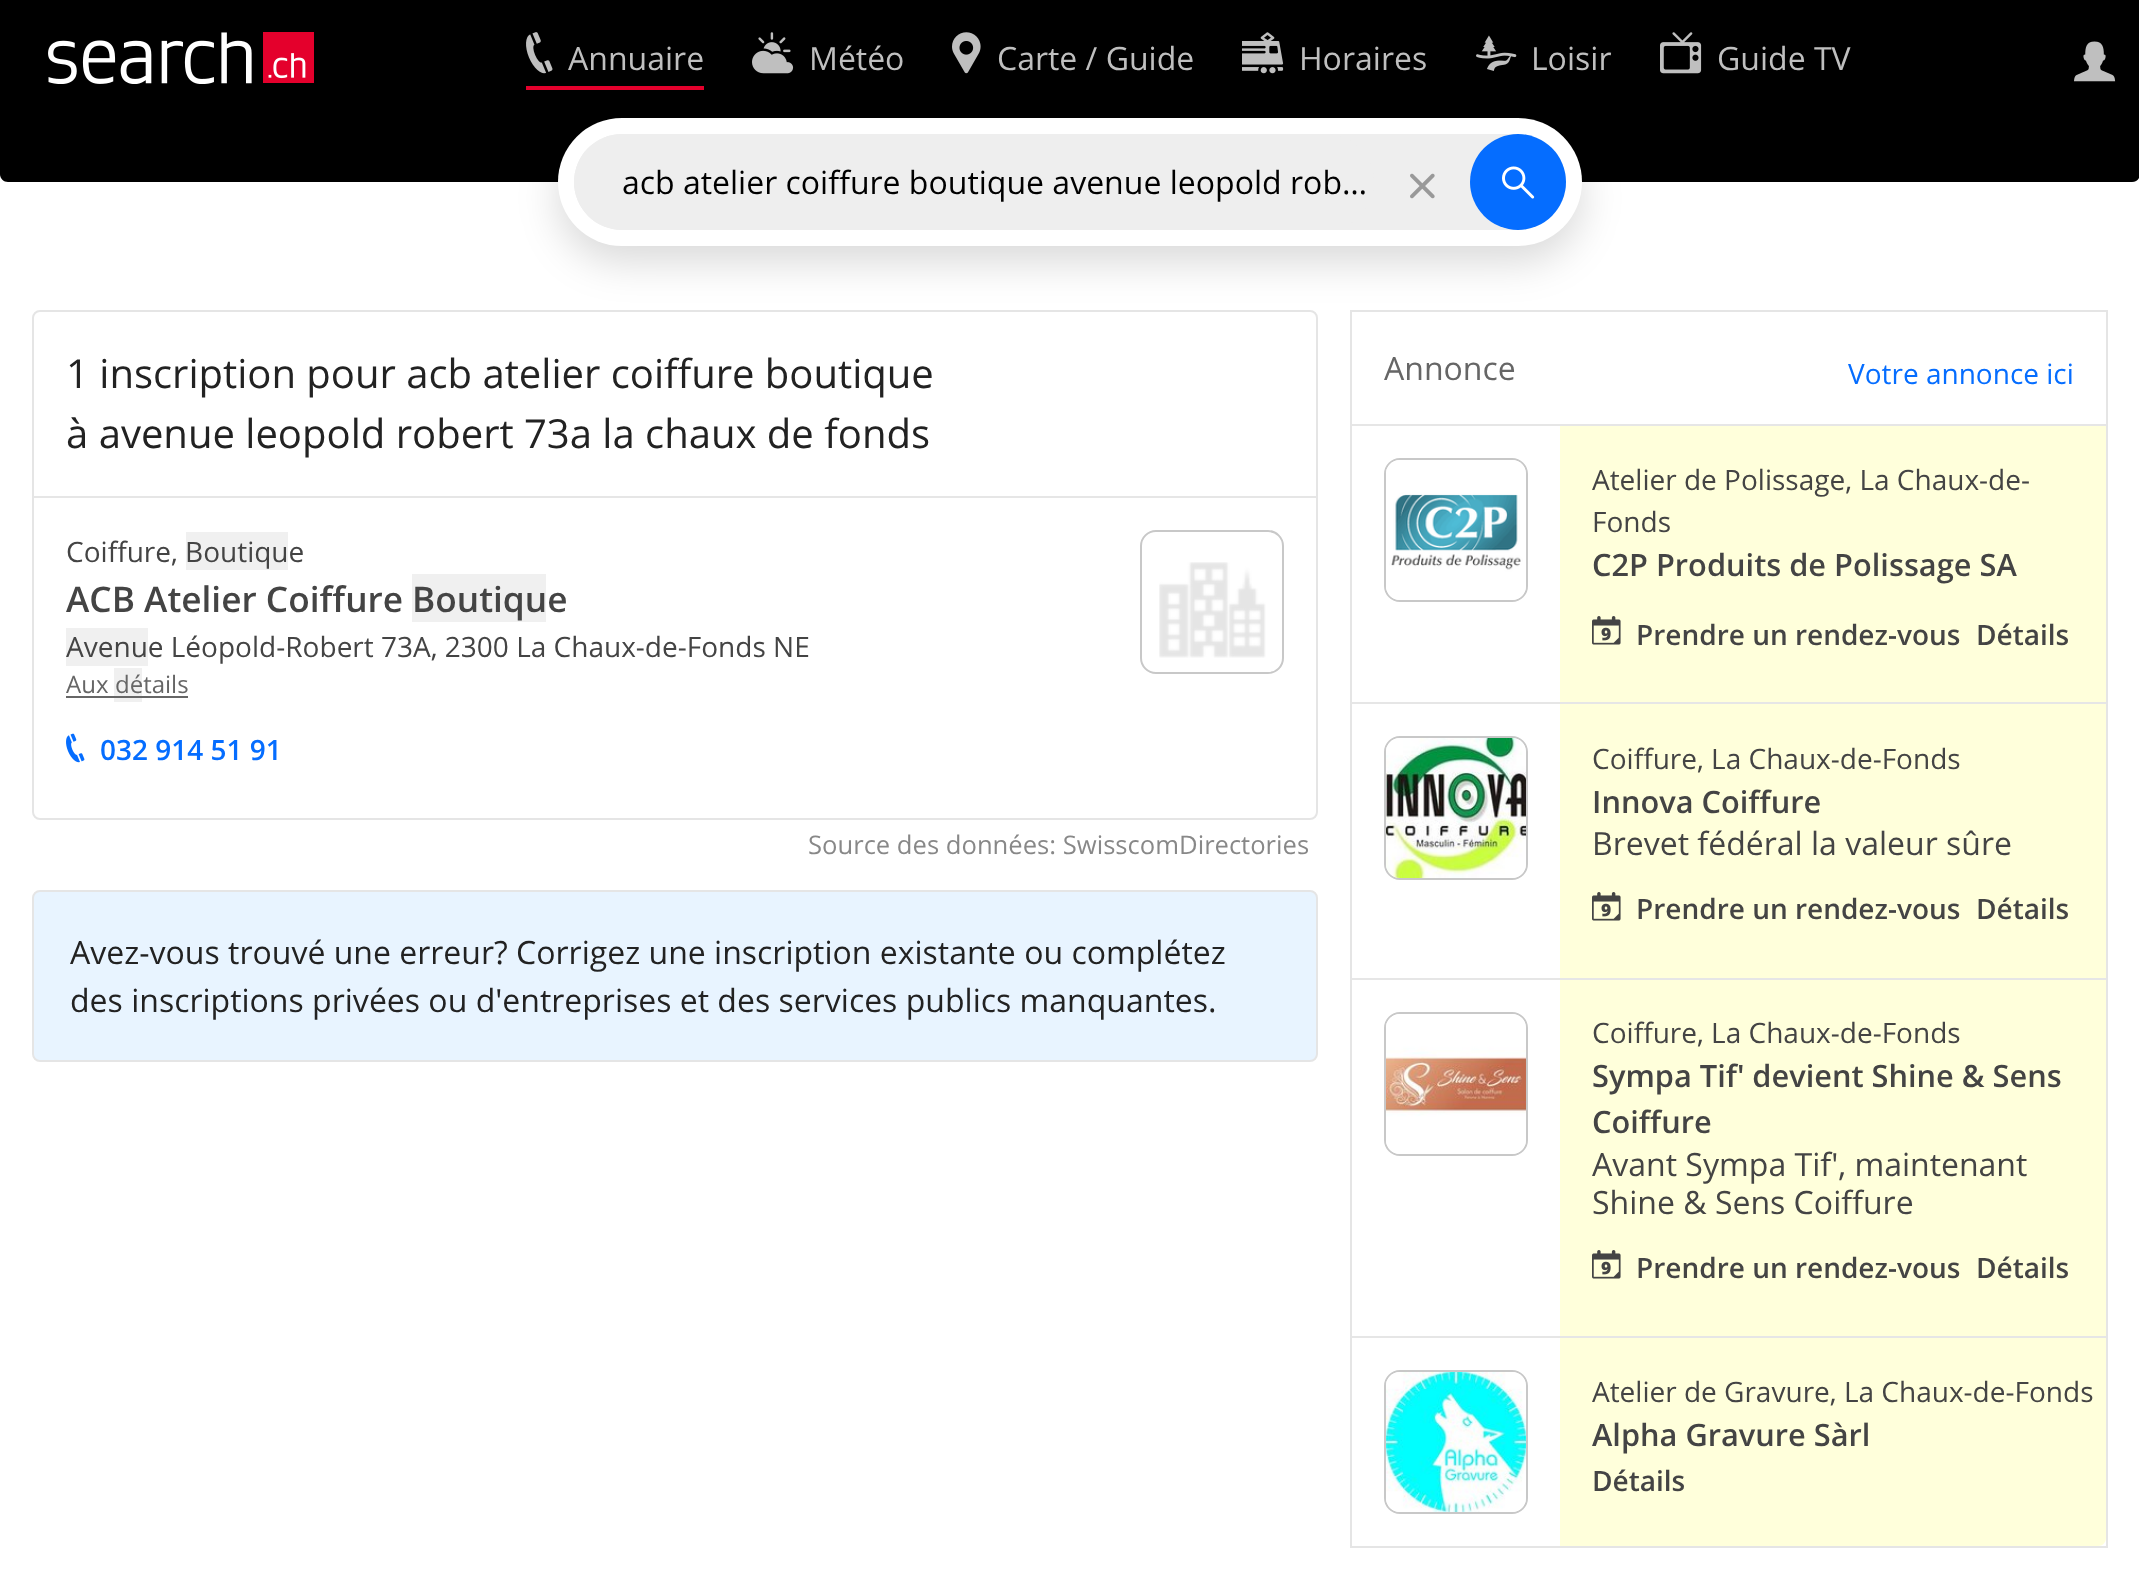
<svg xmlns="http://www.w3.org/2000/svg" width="2139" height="1570">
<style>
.a{font:32px Open Sans;fill:#bfbfbf}
.b{font:32px Open Sans;fill:#000}
.c{font:40px Open Sans;fill:#222}
.d{font:28px Open Sans;fill:#444}
.e{font:600 35.25px Open Sans;fill:#444}
.f{font:24px Open Sans;fill:#666}
.g{font:600 28px Open Sans;fill:#056dff}
.h{font:25.6px Open Sans;fill:#888}
.i{font:32px Open Sans;fill:#222}
.j{font:32px Open Sans;fill:#666}
.k{font:28px Open Sans;fill:#056dff}
.l{font:600 30.75px Open Sans;fill:#444}
.m{font:600 28px Open Sans;fill:#444}
.n{font:32px Open Sans;fill:#444}
</style>
<rect width="100%" height="100%" fill="#fff"/>
<path fill="#000" d="M0 0h2139v118H0z"/>
<image href="1.png" x="48" y="32" width="266" height="52"/>
<path fill="#e4002c" d="M526 86h178v4H526z"/>
<image href="2.png" x="526" y="32" width="27" height="42"/>
<image href="3.png" x="752" y="32" width="42" height="42"/>
<image href="4.png" x="952" y="32" width="29" height="42"/>
<image href="5.png" x="1242" y="32" width="42" height="42"/>
<image href="6.png" x="1476" y="35" width="41" height="36"/>
<image href="7.png" x="1660" y="32" width="42" height="42"/>
<image href="8.png" x="2074" y="41" width="42" height="41"/>
<path fill="#000" d="M0 118h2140v56c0 4.5-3.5 8-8 8h-2124c-4.5 0-8-3.5-8-8z"/>
<rect fill="none" stroke="#e5e5e5" stroke-width="2" x="33" y="311" width="1284" height="508" rx="7"/>
<path fill="none" stroke="#e5e5e5" stroke-width="2" d="M1351 311h756v1236H1351z"/>
<rect fill="#00000026" filter="blur(20px)" x="558" y="134" width="1024" height="128" rx="64"/>
<rect fill="#fff" x="558" y="118" width="1024" height="128" rx="64"/>
<rect fill="#eee" x="574" y="134" width="992" height="96" rx="48"/>
<rect fill="#eee" x="574" y="134" width="800" height="96" rx="48"/>
<image href="9.png" x="1410" y="173" width="25" height="26"/>
<circle fill="#056dff" cx="1518" cy="182" r="48"/>
<image href="10.png" x="1502" y="166" width="33" height="33"/>
<path fill="#e6e6e6" d="M34 496h1282v2H34z"/>
<path fill="#f0f0f0" d="M186 532h102v38H186z"/>
<path fill="#f0f0f0" d="M412 574h134v48H412z"/>
<path fill="#f0f0f0" d="M66 628h82v38H66z"/>
<path fill="#666" d="M66 696h48v2H66z"/>
<path fill="#f0f0f0" d="M114 668h28v34H114z"/>
<path fill="#666" d="M114 696h74v2H114z"/>
<image href="11.png" x="66" y="733" width="19" height="30"/>
<rect fill="none" stroke="#c8c8c8" stroke-width="2" x="1141" y="531" width="142" height="142" rx="15"/>
<image href="12.png" x="1159" y="562" width="107" height="96"/>
<rect fill="#e8f4ff" stroke="#e5e5e5" stroke-width="2" x="33" y="891" width="1284" height="170" rx="7"/>
<path fill="#e6e6e6" d="M1352 424h754v2H1352z"/>
<rect fill="none" stroke="#c8c8c8" stroke-width="2" x="1385" y="459" width="142" height="142" rx="15"/>
<image href="13.png" x="1386" y="460" width="140" height="140"/>
<path fill="#ffffdb" d="M1560 426h546v276H1560z"/>
<image href="14.png" x="1592" y="616" width="29" height="29"/>
<path fill="#e6e6e6" d="M1352 702h754v2H1352z"/>
<rect fill="none" stroke="#c8c8c8" stroke-width="2" x="1385" y="737" width="142" height="142" rx="15"/>
<image href="15.png" x="1386" y="738" width="140" height="140"/>
<path fill="#ffffdb" d="M1560 704h546v274H1560z"/>
<image href="14.png" x="1592" y="892" width="29" height="29"/>
<path fill="#e6e6e6" d="M1352 978h754v2H1352z"/>
<rect fill="none" stroke="#c8c8c8" stroke-width="2" x="1385" y="1013" width="142" height="142" rx="15"/>
<image href="16.png" x="1386" y="1014" width="140" height="140"/>
<path fill="#ffffdb" d="M1560 980h546v356H1560z"/>
<image href="14.png" x="1592" y="1250" width="29" height="29"/>
<path fill="#e6e6e6" d="M1352 1336h754v2H1352z"/>
<rect fill="none" stroke="#c8c8c8" stroke-width="2" x="1385" y="1371" width="142" height="142" rx="15"/>
<image href="17.png" x="1386" y="1372" width="140" height="140"/>
<path fill="#ffffdb" d="M1560 1338h546v200c0 4.5-3.5 8-8 8h-538z"/>
<text class="a" x="568" y="70">Annuaire</text>
<text class="a" x="809" y="70">Météo</text>
<text class="a" x="997" y="70">Carte / Guide</text>
<text class="a" x="1299" y="70">Horaires</text>
<text class="a" x="1531" y="70">Loisir</text>
<text class="a" x="1717" y="70">Guide TV</text>
<text class="b" x="622" y="194">acb atelier coiffure boutique avenue leopold rob…</text>
<text class="c" x="66" y="388">1 inscription pour acb atelier coiffure boutique</text>
<text class="c" x="66" y="448">à avenue leopold robert 73a la chaux de fonds</text>
<text class="d" x="66" y="562">Coiffure,</text>
<text class="d" x="185" y="562">Boutique</text>
<text class="e" x="66" y="612">ACB Atelier Coiffure</text>
<text class="e" x="412" y="612">Boutique</text>
<text class="d" x="66" y="657">Avenue Léopold-Robert 73A, 2300 La Chaux-de-Fonds NE</text>
<text class="f" x="66" y="693">Aux</text>
<text class="f" x="115" y="693">détails</text>
<text class="g" x="100" y="760">032 914 51 91</text>
<text class="h" x="808" y="854">Source des données: SwisscomDirectories</text>
<text class="i" x="70" y="964">Avez-vous trouvé une erreur? Corrigez une inscription existante ou complétez</text>
<text class="i" x="70" y="1012">des inscriptions privées ou d'entreprises et des services publics manquantes.</text>
<text class="j" x="1384" y="380">Annonce</text>
<text class="k" x="1848" y="384">Votre annonce ici</text>
<text class="d" x="1592" y="490">Atelier de Polissage, La Chaux-de-</text>
<text class="d" x="1592" y="532">Fonds</text>
<text class="l" x="1592" y="576">C2P Produits de Polissage SA</text>
<text class="m" x="1636" y="645">Prendre un rendez-vous</text>
<text class="m" x="1976" y="645">Détails</text>
<text class="d" x="1592" y="769">Coiffure, La Chaux-de-Fonds</text>
<text class="l" x="1592" y="813">Innova Coiffure</text>
<text class="n" x="1592" y="855">Brevet fédéral la valeur sûre</text>
<text class="m" x="1636" y="919">Prendre un rendez-vous</text>
<text class="m" x="1976" y="919">Détails</text>
<text class="d" x="1592" y="1043">Coiffure, La Chaux-de-Fonds</text>
<text class="l" x="1592" y="1087">Sympa Tif' devient Shine &amp; Sens</text>
<text class="l" x="1592" y="1133">Coiffure</text>
<text class="n" x="1592" y="1176">Avant Sympa Tif', maintenant</text>
<text class="n" x="1592" y="1214">Shine &amp; Sens Coiffure</text>
<text class="m" x="1636" y="1278">Prendre un rendez-vous</text>
<text class="m" x="1976" y="1278">Détails</text>
<text class="d" x="1592" y="1402">Atelier de Gravure, La Chaux-de-Fonds</text>
<text class="l" x="1592" y="1446">Alpha Gravure Sàrl</text>
<text class="m" x="1592" y="1491">Détails</text>
</svg>
